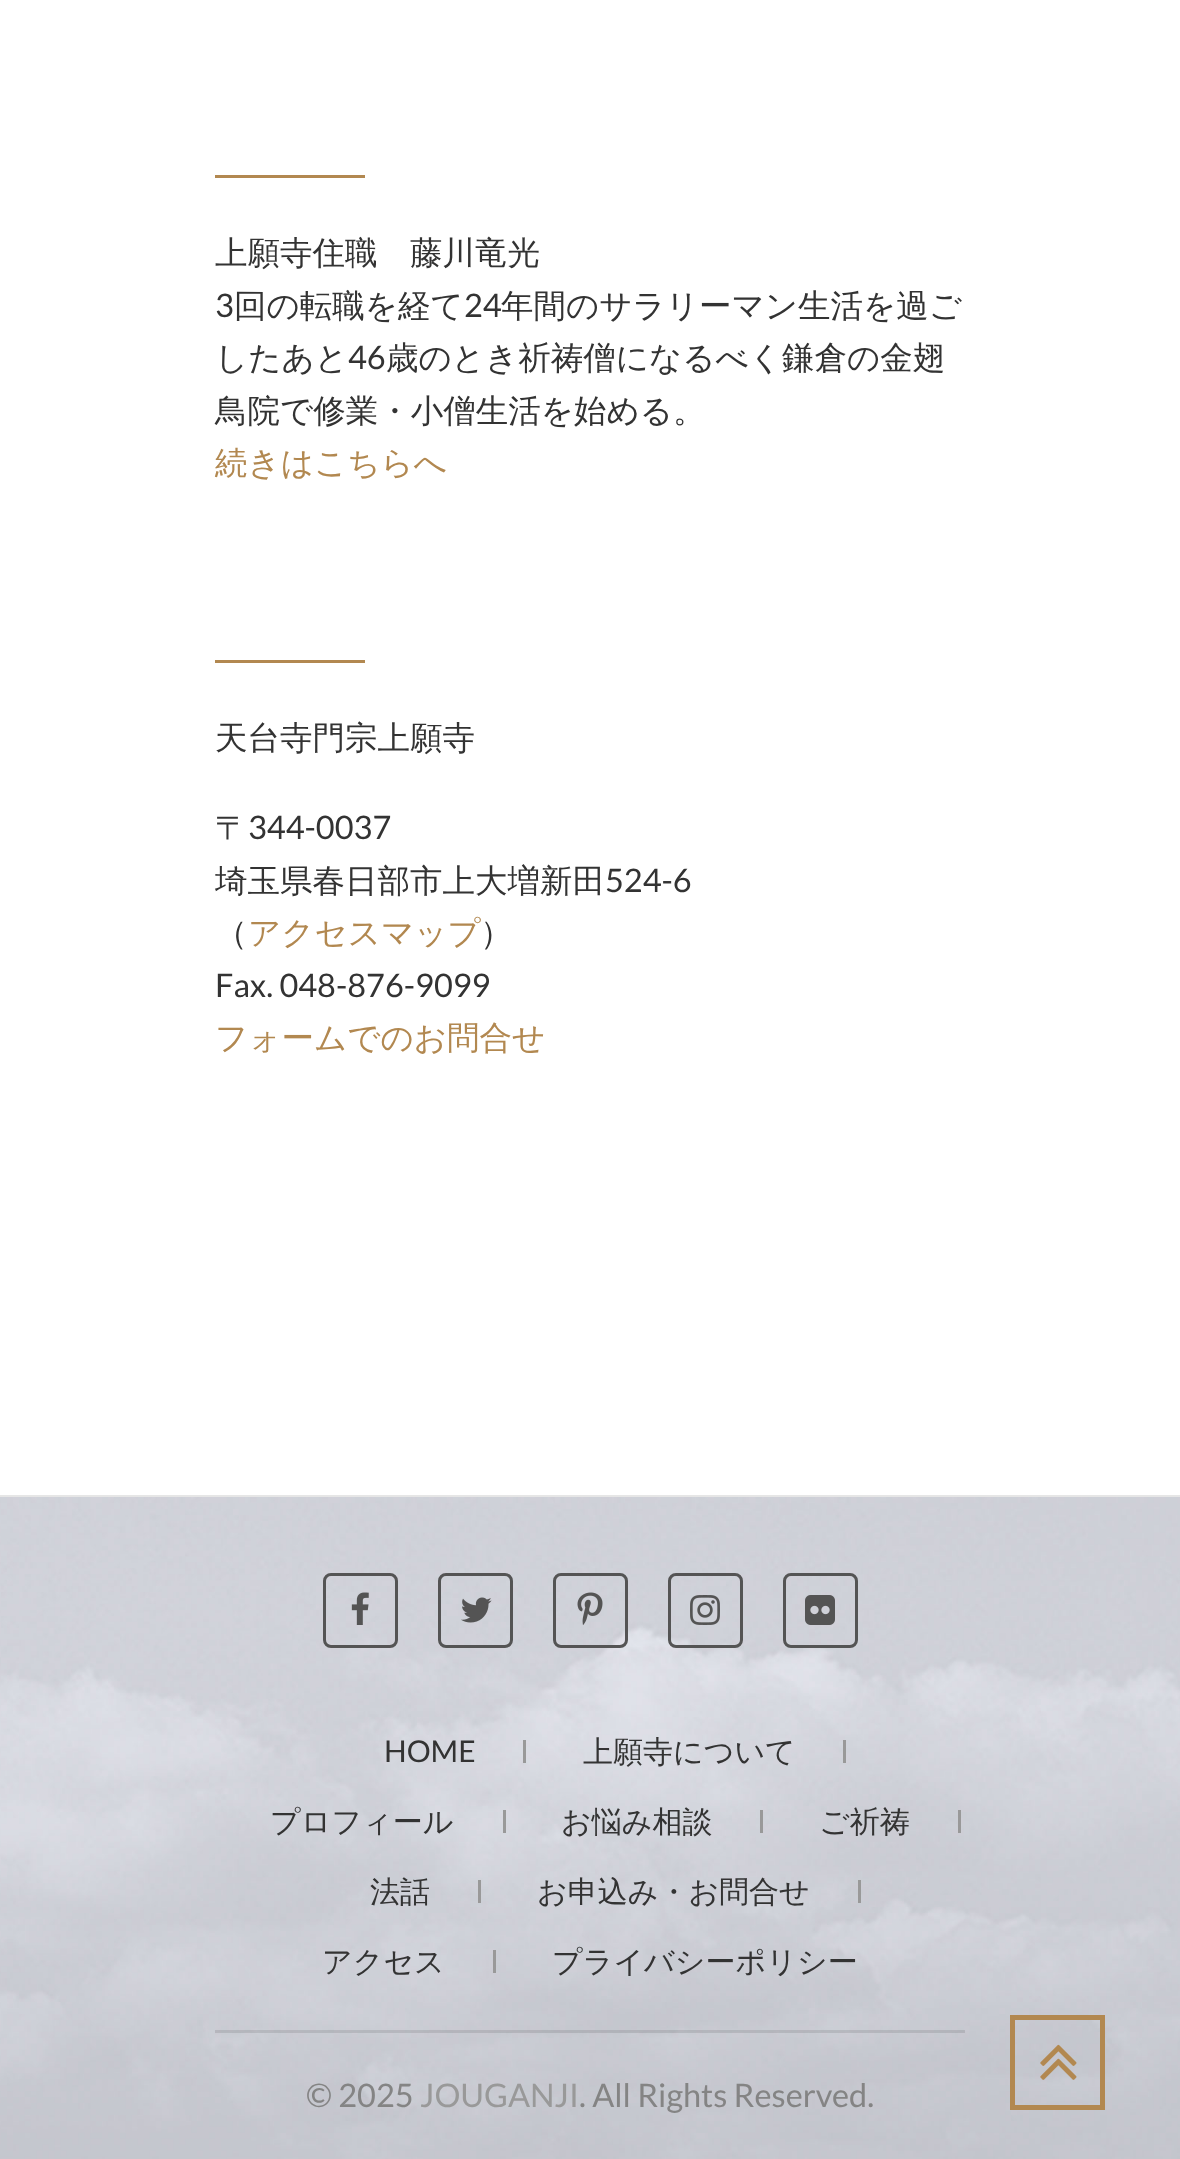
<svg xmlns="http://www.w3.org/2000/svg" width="1180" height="2159">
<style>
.a{font:500 32.5px WenQuanYi Zen Hei;fill:#333}
.b{font:32.5px Lato;fill:#333}
.c{font:500 32.5px WenQuanYi Zen Hei;fill:#b28850}
.d{font:30px Lato;fill:#333}
.e{font:500 30px WenQuanYi Zen Hei;fill:#333}
.f{font:32.5px Lato;fill:#848484}
.g{font:32.5px Lato;fill:#999}
</style>
<rect width="100%" height="100%" fill="#fff"/>
<path fill="#e6e6e6" d="M0 1495h1180v2H0z"/>
<path fill="#b28850" d="M215 175h150v3H215z"/>
<path fill="#b28850" d="M215 660h150v3H215z"/>
<image href="1.png" x="0" y="1497" width="1180" height="662"/>
<rect fill="none" stroke="#545454" stroke-width="3" x="324.5" y="1574.5" width="72" height="72" rx="6.5"/>
<image href="2.png" x="351" y="1592" width="18" height="33"/>
<rect fill="none" stroke="#545454" stroke-width="3" x="439.5" y="1574.5" width="72" height="72" rx="6.5"/>
<image href="3.png" x="461" y="1597" width="31" height="26"/>
<rect fill="none" stroke="#545454" stroke-width="3" x="554.5" y="1574.5" width="72" height="72" rx="6.5"/>
<image href="4.png" x="577" y="1592" width="26" height="33"/>
<rect fill="none" stroke="#545454" stroke-width="3" x="669.5" y="1574.5" width="72" height="72" rx="6.5"/>
<image href="5.png" x="690" y="1595" width="30" height="30"/>
<rect fill="none" stroke="#545454" stroke-width="3" x="784.5" y="1574.5" width="72" height="72" rx="6.5"/>
<image href="6.png" x="805" y="1595" width="30" height="30"/>
<path fill="#0000001a" d="M215 2030h750v3H215z"/>
<path fill="#999" d="M523 1740h3v23H523z"/>
<path fill="#999" d="M843 1740h3v23H843z"/>
<path fill="#999" d="M503 1810h3v23H503z"/>
<path fill="#999" d="M760 1810h3v23H760z"/>
<path fill="#999" d="M958 1810h3v23H958z"/>
<path fill="#999" d="M478 1880h3v23H478z"/>
<path fill="#999" d="M858 1880h3v23H858z"/>
<path fill="#999" d="M493 1950h3v23H493z"/>
<path fill="none" stroke="#b28850" stroke-width="5" d="M1012.5 2017.5h90v90H1012.5z"/>
<image href="7.png" x="1040" y="2044" width="37" height="36"/>
<text class="a" x="215" y="264">上願寺住職　藤川竜光</text>
<text class="b" x="215" y="317">3</text>
<text class="a" x="234" y="317">回の転職を経て</text>
<text class="b" x="464" y="317">24</text>
<text class="a" x="501" y="317">年間のサラリーマン生活を過ご</text>
<text class="a" x="215" y="369">したあと</text>
<text class="b" x="348" y="369">46</text>
<text class="a" x="386" y="369">歳のとき祈祷僧になるべく鎌倉の金翅</text>
<text class="a" x="215" y="422">鳥院で修業・小僧生活を始める。</text>
<text class="c" x="215" y="474">続きはこちらへ</text>
<text class="a" x="215" y="749">天台寺門宗上願寺</text>
<text class="a" x="215" y="839">〒</text>
<text class="b" x="248" y="839">344-0037</text>
<text class="a" x="215" y="892">埼玉県春日部市上大増新田</text>
<text class="b" x="605" y="892">524-6</text>
<text class="a" x="215" y="944">（</text>
<text class="c" x="248" y="944">アクセスマップ</text>
<text class="a" x="480" y="944">）</text>
<text class="b" x="215" y="997">Fax. 048-876-9099</text>
<text class="c" x="215" y="1049">フォームでのお問合せ</text>
<text class="d" x="384" y="1762">HOME</text>
<text class="e" x="583" y="1762">上願寺について</text>
<text class="e" x="270" y="1832">プロフィール</text>
<text class="e" x="561" y="1832">お悩み相談</text>
<text class="e" x="819" y="1832">ご祈祷</text>
<text class="e" x="370" y="1902">法話</text>
<text class="e" x="537" y="1902">お申込み・お問合せ</text>
<text class="e" x="322" y="1972">アクセス</text>
<text class="e" x="552" y="1972">プライバシーポリシー</text>
<text class="f" x="306" y="2107">© 2025</text>
<text class="g" x="420" y="2107">JOUGANJI</text>
<text class="f" x="579" y="2107">. All Rights Reserved.</text>
</svg>
